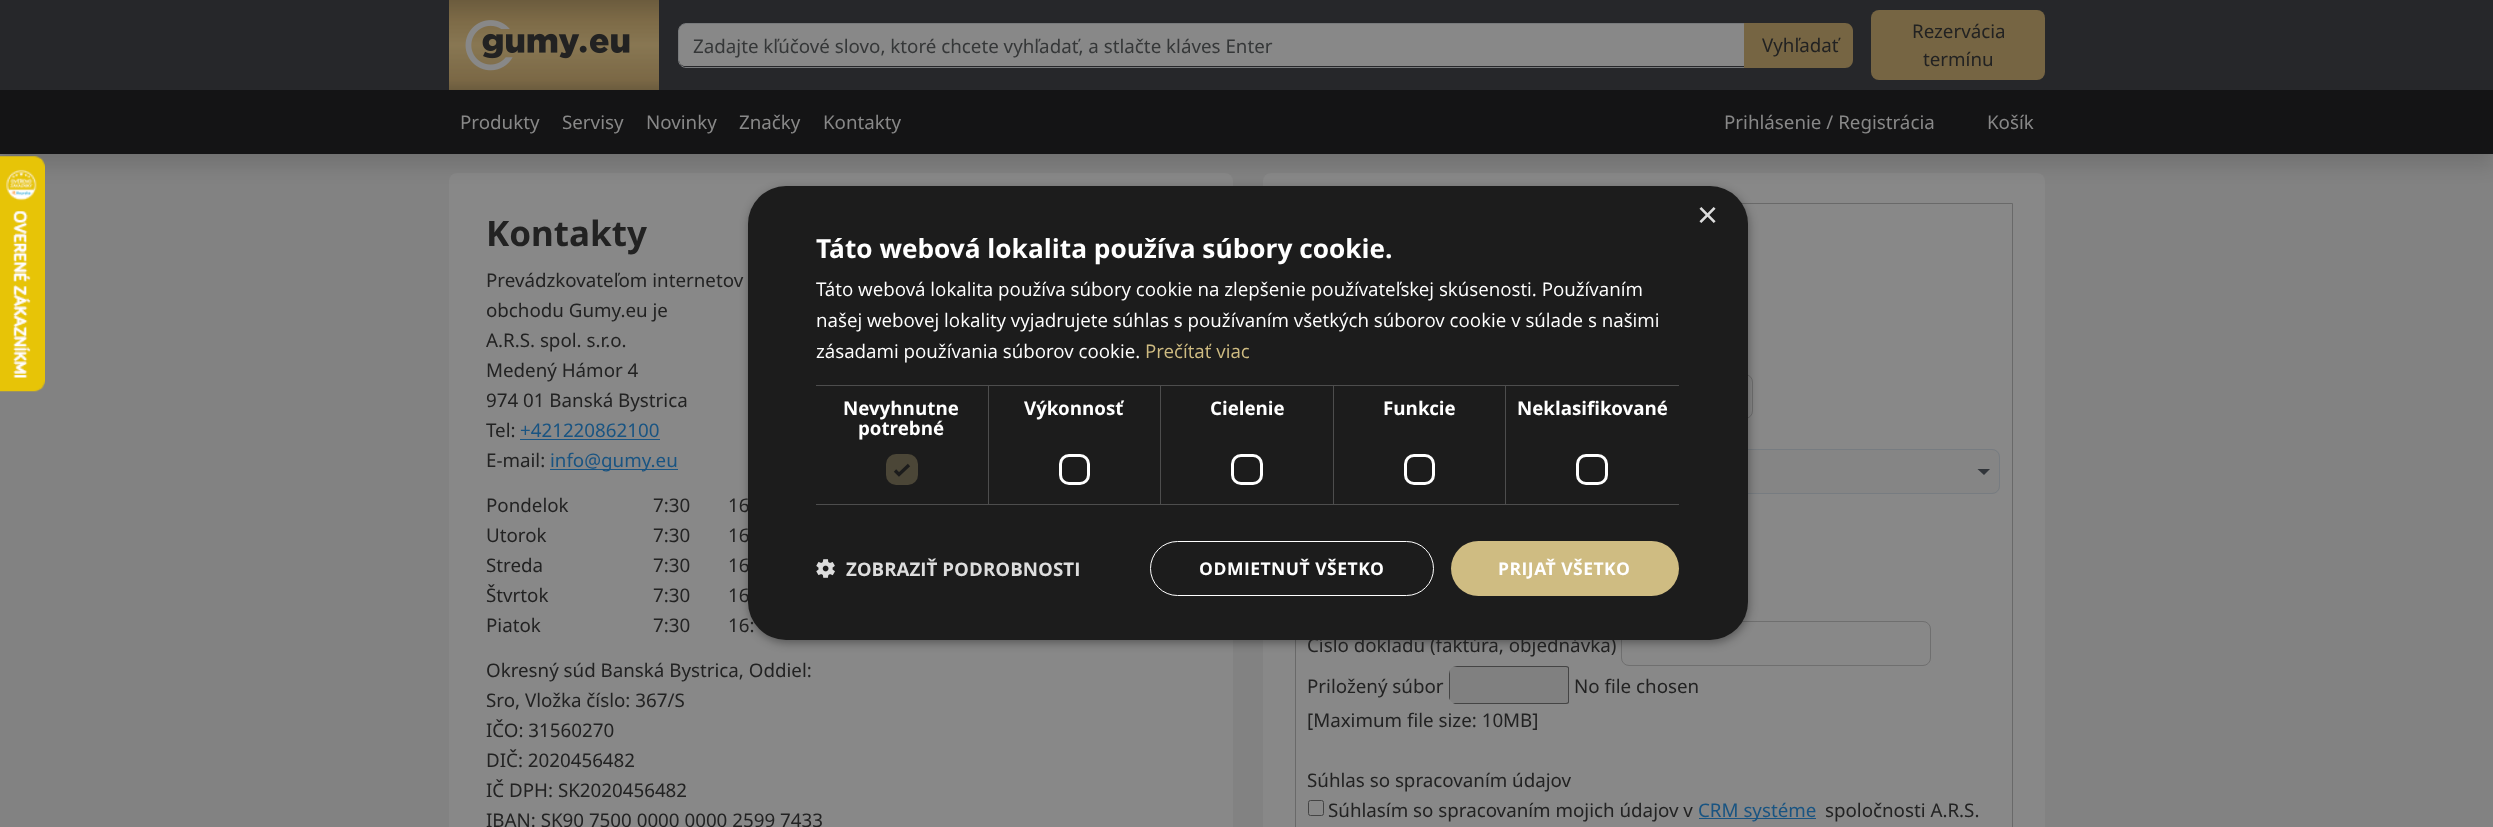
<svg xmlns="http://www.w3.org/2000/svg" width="2493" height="827">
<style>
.a{font:18.75px Noto Sans;fill:#353738}
.b{font:18.75px Noto Sans;fill:#222}
.c{font:18.75px Noto Sans;fill:#888}
.d{font:bold 35px Noto Sans;fill:#222}
.e{font:18.75px Noto Sans;fill:#195482}
.f{font:36px Liberation Sans;fill:#ddd}
.g{font:bold 26.25px Open Sans;fill:#fff}
.h{font:bold 18.75px Open Sans;fill:#ddd}
.i{font:bold 17.5px Open Sans;letter-spacing:0.5px;fill:#fff}
.j{font:bold 18.75px Open Sans;fill:#fff}
.k{font:18.75px Open Sans;fill:#cfbc82}
.l{font:18.75px Open Sans;fill:#fff}
</style>
<rect width="100%" height="100%" fill="#828282"/>
<rect fill="#888" x="449" y="173" width="784" height="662" rx="8"/>
<rect fill="#888" x="1263" y="173" width="782" height="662" rx="8"/>
<path fill="#09090926" filter="blur(9.5px)" d="M0 10h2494v154H0z"/>
<path fill="#141415" d="M0 90h2493v64H0z"/>
<path fill="#26272a" d="M0 0h2493v90H0z"/>
<image href="1.png" x="449" y="0" width="210" height="90"/>
<path fill="#888" d="M685 24h1059v42h-1059c-3.5 0-6-2.5-6-6v-30c0-3.5 2.5-6 6-6z"/>
<path fill="none" stroke="#787a7c" d="M686 23.5h1058.5v44h-1058.5c-4 0-7.5-3.5-7.5-7.5v-29c0-4 3.5-7.5 7.5-7.5z"/>
<path fill="#766543" d="M1744 23h101c4.5 0 8 3.5 8 8v29c0 4.5-3.5 8-8 8h-101z"/>
<rect fill="#766543" x="1871" y="10" width="174" height="70" rx="8"/>
<image href="2.png" x="0" y="156" width="45" height="236"/>
<path fill="none" stroke="#696969" d="M1295.5 203.5h717v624H1295.5z"/>
<rect fill="none" stroke="#6f6f6f" x="1443.5" y="374.5" width="309" height="44" rx="7.5"/>
<rect fill="#858585" x="1308" y="449" width="692" height="45" rx="8"/>
<path fill="#31353a" d="M1977.5 469l6.5 6l6-6z"/>
<rect fill="none" stroke="#777c81" x="1308.5" y="449.5" width="691" height="44" rx="7.5"/>
<rect fill="none" stroke="#6f6f6f" x="1621.5" y="621.5" width="309" height="44" rx="7.5"/>
<rect fill="#00000059" filter="blur(5px)" x="749" y="189" width="1000" height="454" rx="38"/>
<path fill="#195482" d="M520 439h140v1H520z"/>
<path fill="#195482" d="M550 469h128v1H550z"/>
<path fill="#808080" d="M1457 666h109.5c1.5 0 2.5 1 2.5 2.5v33c0 1.5-1 2.5-2.5 2.5h-109.5c-4.5 0-8-3.5-8-8v-22c0-4.5 3.5-8 8-8z"/>
<path fill="#444" fill-rule="evenodd" d="M1449 674v22c0 1 0 3 1 4v-30zm8-8l-4 1h113c1 0 2 1 2 1v34c0 0-1 1-2 1h-113c1 1 3 1 4 1h109c2 0 3-1 3-2v-34c0-1-1-2-3-2z"/>
<rect fill="none" stroke="#444" x="1308.5" y="800.5" width="15" height="15" rx="2"/>
<path fill="#195482" d="M1699 818h117v1H1699z"/>
<text class="a" x="693" y="53">Zadajte kľúčové slovo, ktoré chcete vyhľadať, a stlačte kláves Enter</text>
<text class="b" x="1762" y="52">Vyhľadať</text>
<text class="b" x="1912" y="38">Rezervácia</text>
<text class="b" x="1923" y="66">termínu</text>
<text class="c" x="460" y="129">Produkty</text>
<text class="c" x="562" y="129">Servisy</text>
<text class="c" x="646" y="129">Novinky</text>
<text class="c" x="739" y="129">Značky</text>
<text class="c" x="823" y="129">Kontakty</text>
<text class="c" x="1724" y="129">Prihlásenie / Registrácia</text>
<text class="c" x="1987" y="129">Košík</text>
<text class="d" x="486" y="246">Kontakty</text>
<text class="b" x="486" y="287">Prevádzkovateľom internetov</text>
<text class="b" x="486" y="317">obchodu Gumy.eu je</text>
<text class="b" x="486" y="347">A.R.S. spol. s.r.o.</text>
<text class="b" x="486" y="377">Medený Hámor 4</text>
<text class="b" x="486" y="407">974 01 Banská Bystrica</text>
<text class="b" x="486" y="437">Tel:</text>
<text class="e" x="520" y="437">+421220862100</text>
<text class="b" x="486" y="467">E-mail:</text>
<text class="e" x="550" y="467">info@gumy.eu</text>
<text class="b" x="486" y="512">Pondelok</text>
<text class="b" x="653" y="512">7:30</text>
<text class="b" x="728" y="512">16</text>
<text class="b" x="486" y="542">Utorok</text>
<text class="b" x="653" y="542">7:30</text>
<text class="b" x="728" y="542">16</text>
<text class="b" x="486" y="572">Streda</text>
<text class="b" x="653" y="572">7:30</text>
<text class="b" x="728" y="572">16</text>
<text class="b" x="486" y="602">Štvrtok</text>
<text class="b" x="653" y="602">7:30</text>
<text class="b" x="728" y="602">16</text>
<text class="b" x="486" y="632">Piatok</text>
<text class="b" x="653" y="632">7:30</text>
<text class="b" x="728" y="632">16:</text>
<text class="b" x="486" y="677">Okresný súd Banská Bystrica, Oddiel:</text>
<text class="b" x="486" y="707">Sro, Vložka číslo: 367/S</text>
<text class="b" x="486" y="737">IČO: 31560270</text>
<text class="b" x="486" y="767">DIČ: 2020456482</text>
<text class="b" x="486" y="797">IČ DPH: SK2020456482</text>
<text class="b" x="486" y="827">IBAN: SK90 7500 0000 0000 2599 7433</text>
<text class="b" x="1307" y="652">Číslo dokladu (faktúra, objednávka)</text>
<rect fill="#1c1c1c" x="748" y="186" width="1000" height="454" rx="38"/>
<text class="f" x="1697" y="227">×</text>
<text class="g" x="816" y="258">Táto webová lokalita používa súbory cookie.</text>
<image href="3.png" x="816" y="559" width="19" height="19"/>
<text class="h" x="846" y="576">ZOBRAZIŤ PODROBNOSTI</text>
<rect fill="none" stroke="#fff" stroke-width="3" x="1577.5" y="455.5" width="29" height="28" rx="8.5"/>
<rect fill="none" stroke="#fff" stroke-width="3" x="1405.5" y="455.5" width="28" height="28" rx="8.5"/>
<rect fill="none" stroke="#fff" stroke-width="3" x="1232.5" y="455.5" width="29" height="28" rx="8.5"/>
<rect fill="none" stroke="#fff" stroke-width="3" x="1060.5" y="455.5" width="28" height="28" rx="8.5"/>
<rect fill="#4b4637" x="886" y="454" width="32" height="31" rx="10"/>
<path fill="none" stroke="#1c1c1c" stroke-width="3.3" d="M895 470.5l4 4l10-9.5"/>
<rect fill="none" stroke="#fff" x="1150.5" y="541.5" width="283" height="54" rx="27"/>
<text class="i" x="1199" y="575">ODMIETNUŤ VŠETKO</text>
<rect fill="#cfbc82" x="1451" y="541" width="228" height="55" rx="27.5"/>
<text class="i" x="1498" y="575">PRIJAŤ VŠETKO</text>
<text class="j" x="1517" y="415">Neklasifikované</text>
<text class="j" x="1383" y="415">Funkcie</text>
<path fill="#4d4d4d" d="M816 385h863v1H816z"/>
<path fill="#4d4d4d" d="M1505 385h1v120H1505z"/>
<path fill="#4d4d4d" d="M1334 504h345v1H1334z"/>
<text class="j" x="1210" y="415">Cielenie</text>
<path fill="#4d4d4d" d="M1333 385h1v120H1333z"/>
<path fill="#4d4d4d" d="M1161 504h173v1H1161z"/>
<text class="j" x="1024" y="415">Výkonnosť</text>
<path fill="#4d4d4d" d="M1160 385h1v120H1160z"/>
<path fill="#4d4d4d" d="M989 504h172v1H989z"/>
<text class="j" x="858" y="435">potrebné</text>
<text class="j" x="843" y="415">Nevyhnutne</text>
<path fill="#4d4d4d" d="M988 385h1v120H988z"/>
<path fill="#4d4d4d" d="M816 504h173v1H816z"/>
<text class="k" x="1145" y="358">Prečítať viac</text>
<text class="l" x="816" y="358">zásadami používania súborov cookie.</text>
<text class="l" x="816" y="327">našej webovej lokality vyjadrujete súhlas s používaním všetkých súborov cookie v súlade s našimi</text>
<text class="l" x="816" y="296">Táto webová lokalita používa súbory cookie na zlepšenie používateľskej skúsenosti. Používaním</text>
<text class="b" x="1307" y="693">Priložený súbor</text>
<text class="b" x="1574" y="693">No file chosen</text>
<text class="b" x="1307" y="727">[Maximum file size: 10MB]</text>
<text class="b" x="1307" y="787">Súhlas so spracovaním údajov</text>
<text class="b" x="1328" y="817">Súhlasím so spracovaním mojich údajov v</text>
<text class="e" x="1698" y="817">CRM systéme</text>
<text class="b" x="1825" y="817">spoločnosti A.R.S.</text>
</svg>
